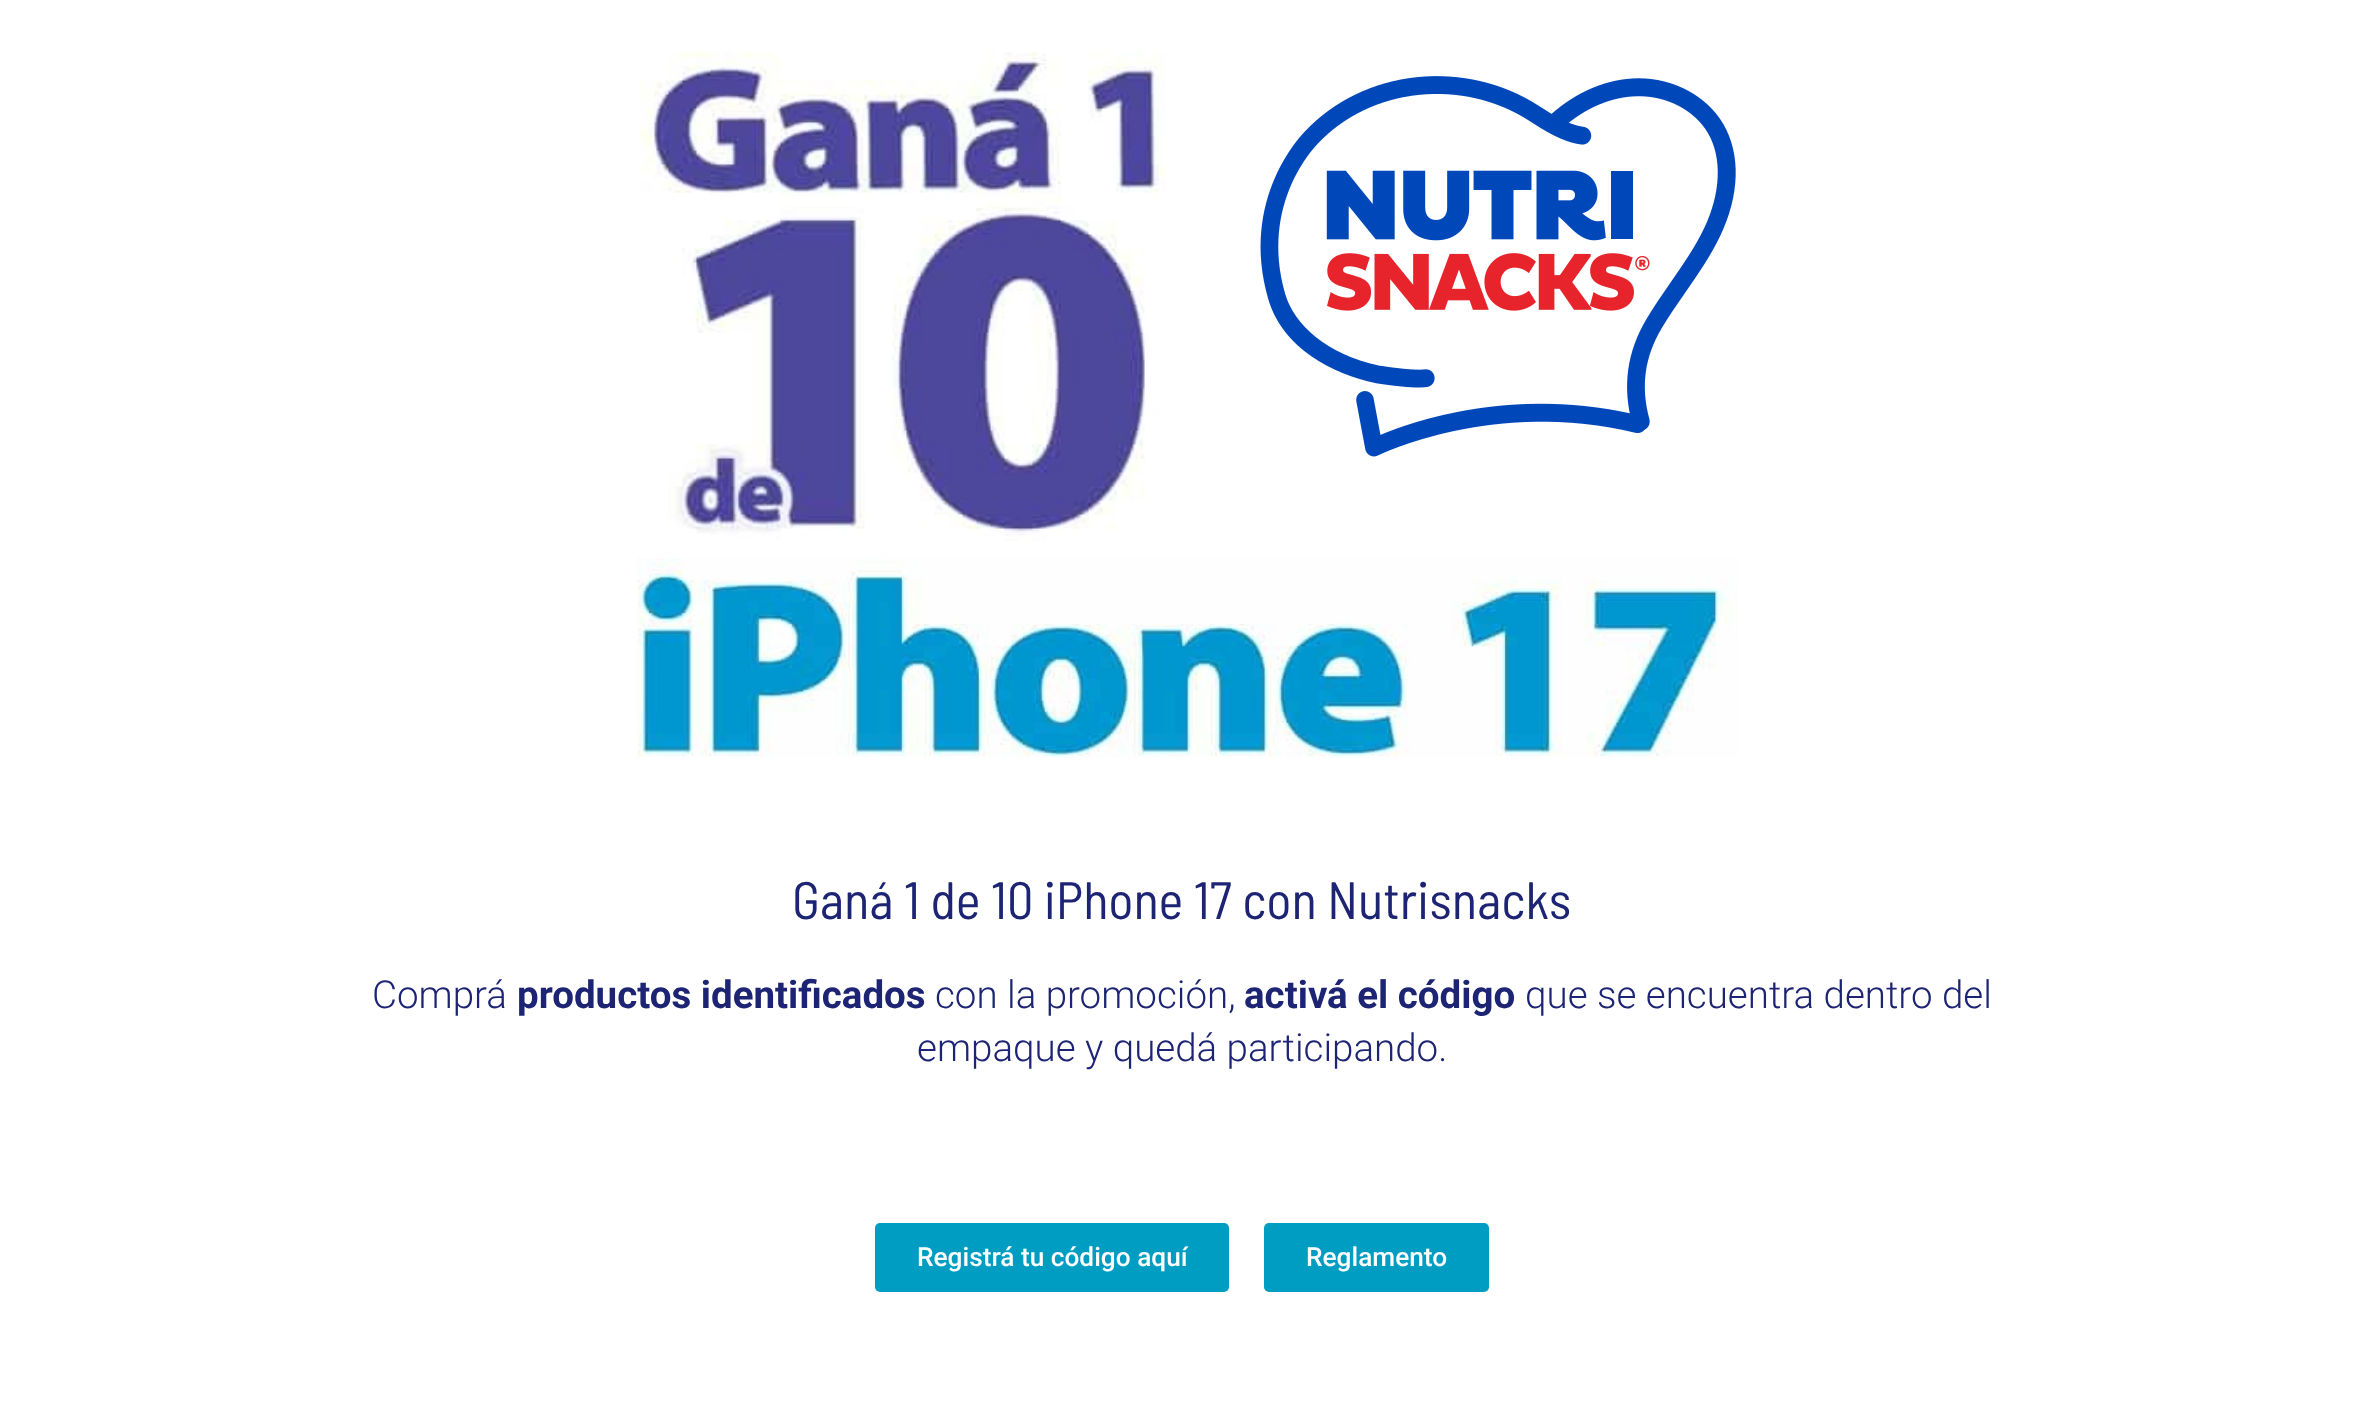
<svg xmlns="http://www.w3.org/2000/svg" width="2364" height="1411">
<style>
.a{font:52.5px Barlow Semi Condensed;fill:#1c2473}
.b{font:300 38.5px Roboto;fill:#1c2473}
.c{font:bold 38.5px Roboto;fill:#1c2473}
.d{font:500 26.25px Roboto;fill:#fff}
</style>
<rect width="100%" height="100%" fill="#fff"/>
<image href="1.png" x="640" y="52" width="526" height="489"/>
<image href="2.png" x="1260" y="76" width="476" height="381"/>
<image href="3.png" x="637" y="558" width="1101" height="200"/>
<rect fill="#009dc3" x="875" y="1223" width="354" height="69" rx="5"/>
<rect fill="#009dc3" x="1264" y="1223" width="225" height="69" rx="5"/>
<text class="a" x="792" y="919">Ganá 1 de 10 iPhone 17 con Nutrisnacks</text>
<text class="b" x="372" y="1008">Comprá</text>
<text class="c" x="517" y="1008">productos identificados</text>
<text class="b" x="935" y="1008">con la promoción,</text>
<text class="c" x="1244" y="1008">activá el código</text>
<text class="b" x="1525" y="1008">que se encuentra dentro del</text>
<text class="b" x="917" y="1061">empaque y quedá participando.</text>
<text class="d" x="917" y="1266">Registrá tu código aquí</text>
<text class="d" x="1306" y="1266">Reglamento</text>
</svg>
